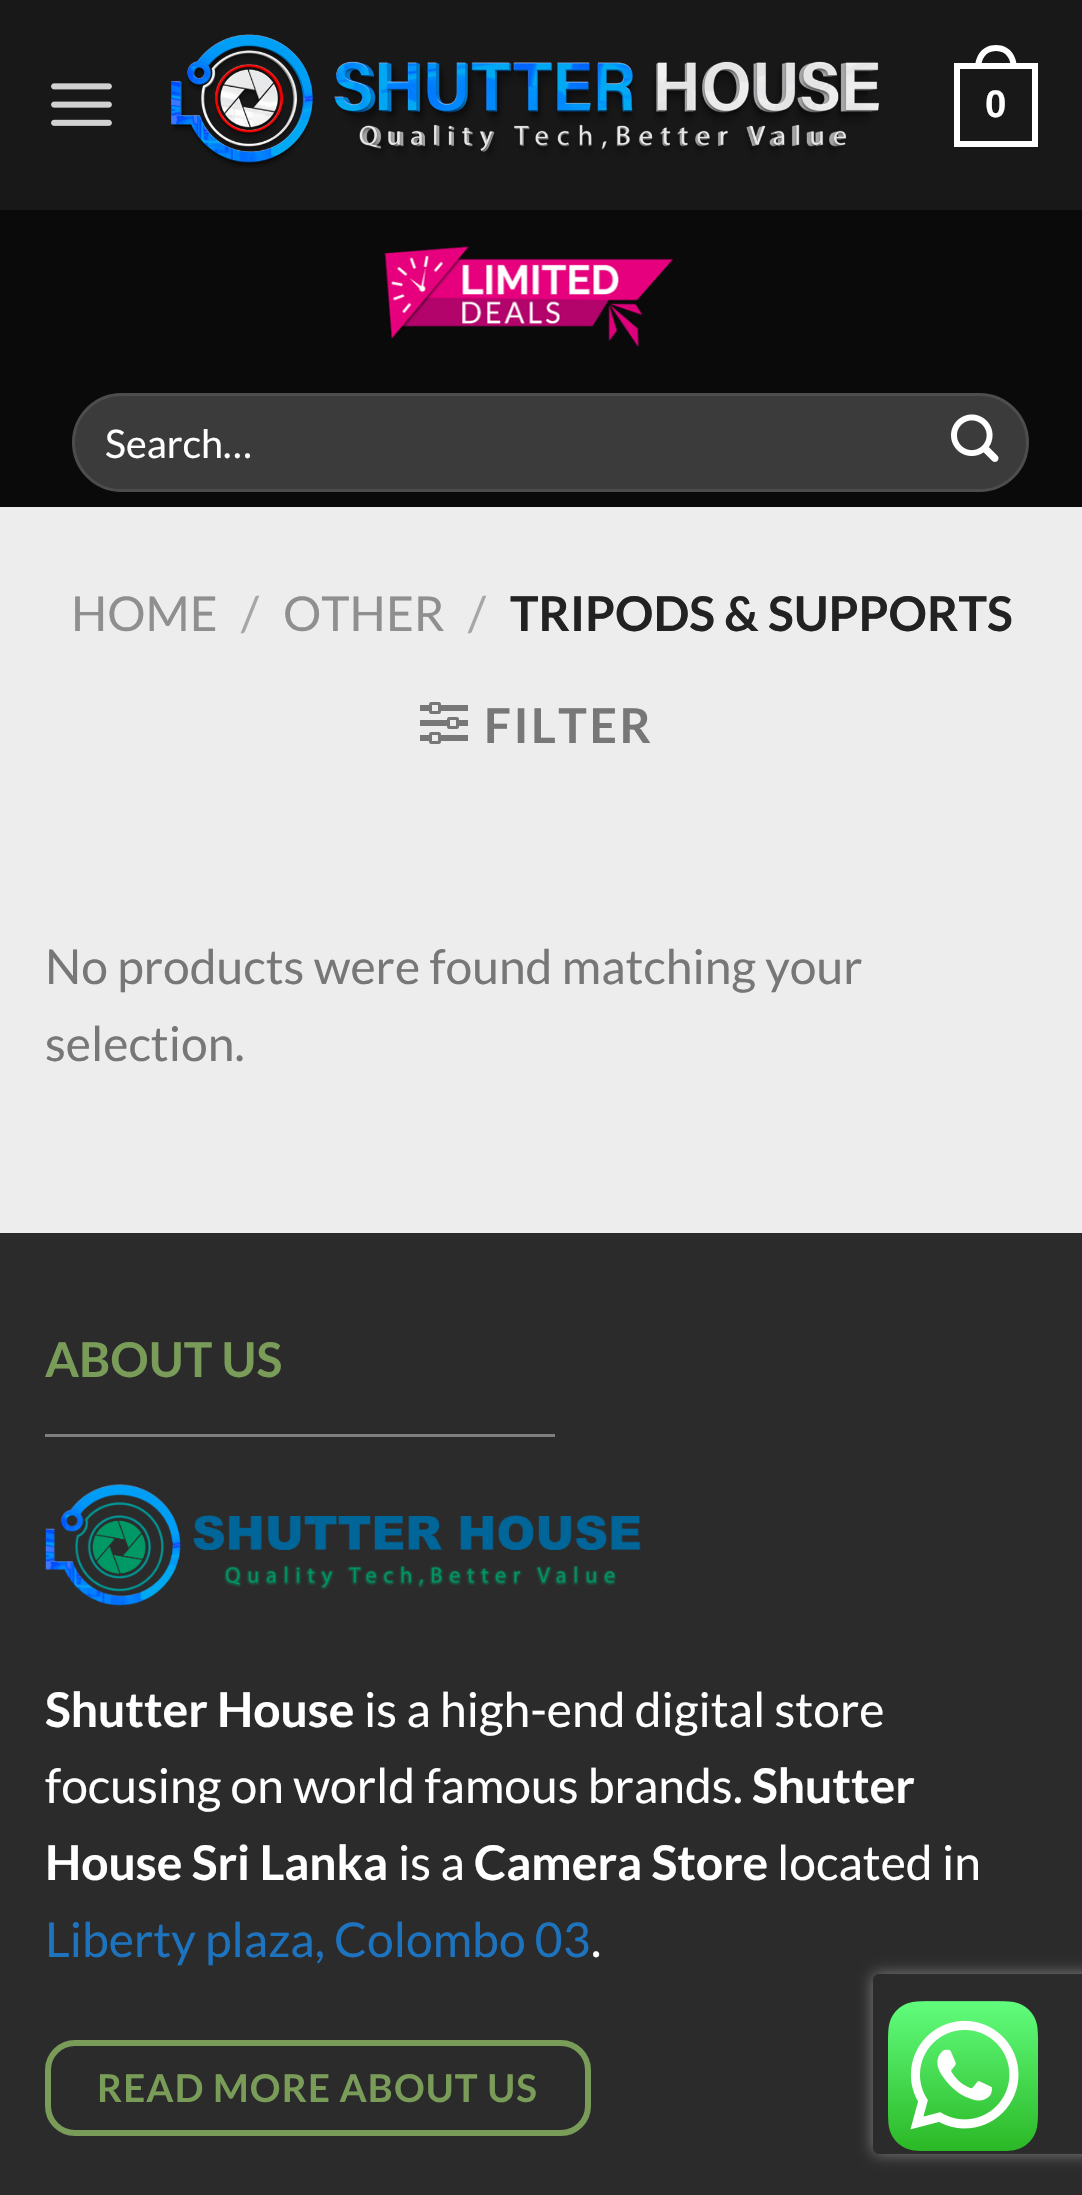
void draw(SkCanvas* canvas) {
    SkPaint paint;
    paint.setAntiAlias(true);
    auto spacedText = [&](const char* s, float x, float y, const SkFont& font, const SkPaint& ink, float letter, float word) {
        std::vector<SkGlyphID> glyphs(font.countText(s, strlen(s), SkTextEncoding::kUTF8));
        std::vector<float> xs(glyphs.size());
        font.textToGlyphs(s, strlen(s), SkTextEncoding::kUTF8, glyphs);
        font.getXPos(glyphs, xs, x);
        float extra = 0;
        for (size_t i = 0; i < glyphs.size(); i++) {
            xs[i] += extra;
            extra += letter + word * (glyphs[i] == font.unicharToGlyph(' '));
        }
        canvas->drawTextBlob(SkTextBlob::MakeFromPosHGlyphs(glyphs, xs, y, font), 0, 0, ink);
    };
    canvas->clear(0xFFEDEDED);
    paint.setColor(0xFF181818);
    canvas->drawRect(SkRect::MakeXYWH(0, 0, 1082, 210), paint);
    canvas->drawImageRect(SkImages::DeferredFromEncodedData(SkData::MakeFromFileName("img1.png")), SkRect::MakeXYWH(51, 83, 61, 43), SkSamplingOptions());
    canvas->drawImageRect(SkImages::DeferredFromEncodedData(SkData::MakeFromFileName("img2.png")), SkRect::MakeXYWH(171, 34, 709, 134), SkSamplingOptions());
    paint.setStyle(SkPaint::kStroke_Style);
    paint.setStrokeWidth(6);
    paint.setColor(0xFFFFFFFF);
    canvas->drawRect(SkRect::MakeXYWH(957, 66, 78, 78), paint);
    paint.setStyle(SkPaint::kFill_Style);
    canvas->drawPath(SkPathBuilder(SkPathFillType::kEvenOdd).moveTo(996, 45).cubicTo(1010, 45, 1017, 56, 1017, 69).lineTo(975, 69).cubicTo(975, 56, 982, 45, 996, 45).close().moveTo(996, 51).cubicTo(1007, 51, 1011, 60, 1011, 69).lineTo(981, 69).cubicTo(981, 60, 985, 51, 996, 51).close().detach(), paint);
    SkFont font1(fontMgr->matchFamilyStyle("Liberation Sans", SkFontStyle::Bold()), 38.4f);
    font1.setSubpixel(true);
    canvas->drawString("0", 985, 117, font1, paint);
    paint.setColor(0xFF0A0A0A);
    canvas->drawRect(SkRect::MakeXYWH(0, 210, 1082, 297), paint);
    canvas->drawImageRect(SkImages::DeferredFromEncodedData(SkData::MakeFromFileName("img3.png")), SkRect::MakeXYWH(384, 246, 290, 101), SkSamplingOptions());
    paint.setColor(0xFF3B3B3B);
    canvas->drawRoundRect(SkRect::MakeXYWH(72, 393, 957, 99), 49.5f, 49.5f, paint);
    paint.setStyle(SkPaint::kStroke_Style);
    paint.setStrokeWidth(3);
    paint.setColor(0x17FFFFFF);
    canvas->drawRoundRect(SkRect::MakeXYWH(73.5f, 394.5f, 954, 96), 48, 48, paint);
    SkFont font2(fontMgr->matchFamilyStyle("Lato", SkFontStyle::Normal()), 39.5f);
    font2.setSubpixel(true);
    paint.setStyle(SkPaint::kFill_Style);
    paint.setColor(0xFFFFFFFF);
    canvas->drawString("Search…", 105, 458, font2, paint);
    canvas->drawImageRect(SkImages::DeferredFromEncodedData(SkData::MakeFromFileName("img4.png")), SkRect::MakeXYWH(951, 414, 48, 48), SkSamplingOptions());
    SkFont font3(fontMgr->matchFamilyStyle("Lato", SkFontStyle::Normal()), 48);
    font3.setSubpixel(true);
    paint.setColor(0xFF8F8F8F);
    canvas->drawString("HOME", 71, 631, font3, paint);
    paint.setColor(0xFFA6A6A6);
    canvas->drawString("/", 241, 631, font3, paint);
    paint.setColor(0xFF8F8F8F);
    canvas->drawString("OTHER", 283, 631, font3, paint);
    paint.setColor(0xFFA6A6A6);
    canvas->drawString("/", 468, 631, font3, paint);
    SkFont font4(fontMgr->matchFamilyStyle("Lato", SkFontStyle::Bold()), 48);
    font4.setSubpixel(true);
    paint.setColor(0xFF222222);
    canvas->drawString("TRIPODS & SUPPORTS", 510, 631, font4, paint);
    canvas->drawImageRect(SkImages::DeferredFromEncodedData(SkData::MakeFromFileName("img5.png")), SkRect::MakeXYWH(420, 702, 48, 42), SkSamplingOptions());
    paint.setColor(0xFF777777);
    spacedText("FILTER", 484, 743, font4, paint, 2.5f, 0);
    canvas->drawString("No products were found matching your", 45, 984, font3, paint);
    canvas->drawString("selection.", 45, 1061, font3, paint);
    paint.setColor(0xFF2B2B2B);
    canvas->drawRect(SkRect::MakeXYWH(0, 1233, 1082, 962), paint);
    paint.setColor(0xFF7A9C59);
    canvas->drawString("ABOUT US", 45, 1377, font4, paint);
    paint.setColor(0xFF7F7F7F);
    canvas->drawRect(SkRect::MakeXYWH(45, 1434, 510, 3), paint);
    canvas->drawImageRect(SkImages::DeferredFromEncodedData(SkData::MakeFromFileName("img6.png")), SkRect::MakeXYWH(45, 1484, 596, 122), SkSamplingOptions());
    paint.setColor(0xFFFFFFFF);
    canvas->drawString("Shutter House", 45, 1727, font4, paint);
    canvas->drawString("is a high-end digital store", 364, 1727, font3, paint);
    canvas->drawString("focusing on world famous brands.", 45, 1803, font3, paint);
    canvas->drawString("Shutter", 752, 1803, font4, paint);
    canvas->drawString("House Sri Lanka", 45, 1880, font4, paint);
    canvas->drawString("is a", 398, 1880, font3, paint);
    canvas->drawString("Camera Store", 474, 1880, font4, paint);
    canvas->drawString("located in", 777, 1880, font3, paint);
    paint.setColor(0xFF1E73BE);
    canvas->drawString("Liberty plaza, Colombo 03", 45, 1957, font3, paint);
    paint.setColor(0xFFFFFFFF);
    canvas->drawString(".", 591, 1957, font3, paint);
    paint.setStyle(SkPaint::kStroke_Style);
    paint.setStrokeWidth(6);
    paint.setColor(0xFF7A9C59);
    canvas->drawRoundRect(SkRect::MakeXYWH(48, 2043, 540, 90), 27, 27, paint);
    SkFont font5(fontMgr->matchFamilyStyle("Lato", SkFontStyle::Bold()), 38.4f);
    font5.setSubpixel(true);
    paint.setStyle(SkPaint::kFill_Style);
    spacedText("READ MORE ABOUT US", 97, 2102, font5, paint, 1.1f, 0);
    canvas->save();
    canvas->clipPath(SkPathBuilder(SkPathFillType::kEvenOdd).moveTo(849, 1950).lineTo(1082, 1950).lineTo(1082, 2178).lineTo(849, 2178).close().moveTo(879, 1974).lineTo(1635, 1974).cubicTo(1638.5f, 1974, 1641, 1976.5f, 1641, 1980).lineTo(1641, 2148).cubicTo(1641, 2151.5f, 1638.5f, 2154, 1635, 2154).lineTo(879, 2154).cubicTo(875.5f, 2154, 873, 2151.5f, 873, 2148).lineTo(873, 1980).cubicTo(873, 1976.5f, 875.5f, 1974, 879, 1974).close().detach(), true);
    paint.setColor(0xFF808080);
    paint.setMaskFilter(SkMaskFilter::MakeBlur(kNormal_SkBlurStyle, 7.5f));
    canvas->drawRoundRect(SkRect::MakeXYWH(873, 1974, 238, 180), 6, 6, paint);
    paint.setMaskFilter(nullptr);
    canvas->restore();
    canvas->drawImageRect(SkImages::DeferredFromEncodedData(SkData::MakeFromFileName("img7.png")), SkRect::MakeXYWH(888, 2001, 150, 150), SkSamplingOptions());
}
